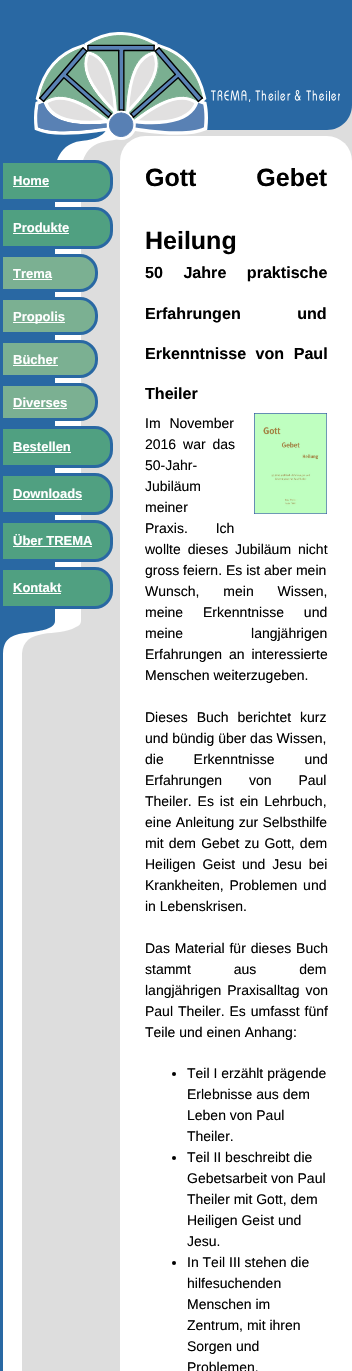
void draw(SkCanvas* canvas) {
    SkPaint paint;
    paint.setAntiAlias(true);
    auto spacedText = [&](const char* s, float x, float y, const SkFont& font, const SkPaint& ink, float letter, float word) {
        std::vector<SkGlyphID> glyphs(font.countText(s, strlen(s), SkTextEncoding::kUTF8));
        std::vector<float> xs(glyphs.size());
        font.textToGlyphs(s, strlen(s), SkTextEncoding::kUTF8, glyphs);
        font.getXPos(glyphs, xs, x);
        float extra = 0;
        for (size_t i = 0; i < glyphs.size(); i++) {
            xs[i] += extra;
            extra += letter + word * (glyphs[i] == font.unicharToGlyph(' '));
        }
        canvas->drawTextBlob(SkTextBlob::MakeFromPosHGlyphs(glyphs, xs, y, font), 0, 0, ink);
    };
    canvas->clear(0xFFDDDDDD);
    paint.setColor(0xFF2968A3);
    canvas->drawPath(SkPathBuilder().moveTo(119, 0).lineTo(352, 0).lineTo(352, 105).cubicTo(352, 119, 341, 130, 327, 130).lineTo(119, 130).close().detach(), paint);
    canvas->drawImageRect(SkImages::DeferredFromEncodedData(SkData::MakeFromFileName("img1.png")), SkRect::MakeXYWH(211, 90, 129, 12), SkSamplingOptions());
    canvas->drawImageRect(SkImages::DeferredFromEncodedData(SkData::MakeFromFileName("img2.png")), SkRect::MakeXYWH(0, 0, 120, 1371), SkSamplingOptions());
    paint.setColor(0xFFFFFFFF);
    canvas->drawRoundRect(SkRect::MakeXYWH(120, 136, 232, 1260), 25, 25, paint);
    canvas->drawImageRect(SkImages::DeferredFromEncodedData(SkData::MakeFromFileName("img3.png")), SkRect::MakeXYWH(34, 32, 174, 108), SkSamplingOptions());
    canvas->drawRect(SkRect::MakeXYWH(55, 202, 26, 413), paint);
    paint.setColor(0xFF2968A3);
    canvas->drawRect(SkRect::MakeXYWH(3, 202, 52, 413), paint);
    paint.setColor(0xFF50A081);
    canvas->drawPath(SkPathBuilder().moveTo(1.5f, 161.5f).lineTo(95, 161.5f).cubicTo(104, 161.5f, 111.5f, 169, 111.5f, 178).lineTo(111.5f, 184).cubicTo(111.5f, 193, 104, 200.5f, 95, 200.5f).lineTo(1.5f, 200.5f).close().detach(), paint);
    paint.setStyle(SkPaint::kStroke_Style);
    paint.setStrokeWidth(3);
    paint.setColor(0xFF2968A3);
    canvas->drawPath(SkPathBuilder().moveTo(1.5f, 161.5f).lineTo(95, 161.5f).cubicTo(104, 161.5f, 111.5f, 169, 111.5f, 178).lineTo(111.5f, 184).cubicTo(111.5f, 193, 104, 200.5f, 95, 200.5f).lineTo(1.5f, 200.5f).close().detach(), paint);
    SkFont font1(fontMgr->matchFamilyStyle("Liberation Sans", SkFontStyle::Bold()), 13);
    font1.setSubpixel(true);
    paint.setStyle(SkPaint::kFill_Style);
    paint.setColor(0xFFFFFFFF);
    canvas->drawString("Home", 13, 185, font1, paint);
    canvas->drawRect(SkRect::MakeXYWH(13, 186, 36, 1), paint);
    paint.setColor(0xFF50A081);
    canvas->drawPath(SkPathBuilder().moveTo(1.5f, 208.5f).lineTo(95, 208.5f).cubicTo(104, 208.5f, 111.5f, 216, 111.5f, 225).lineTo(111.5f, 231).cubicTo(111.5f, 240, 104, 247.5f, 95, 247.5f).lineTo(1.5f, 247.5f).close().detach(), paint);
    paint.setStyle(SkPaint::kStroke_Style);
    paint.setColor(0xFF2968A3);
    canvas->drawPath(SkPathBuilder().moveTo(1.5f, 208.5f).lineTo(95, 208.5f).cubicTo(104, 208.5f, 111.5f, 216, 111.5f, 225).lineTo(111.5f, 231).cubicTo(111.5f, 240, 104, 247.5f, 95, 247.5f).lineTo(1.5f, 247.5f).close().detach(), paint);
    paint.setStyle(SkPaint::kFill_Style);
    paint.setColor(0xFFFFFFFF);
    canvas->drawString("Produkte", 13, 232, font1, paint);
    canvas->drawRect(SkRect::MakeXYWH(13, 233, 56, 1), paint);
    paint.setColor(0xFF7BB092);
    canvas->drawPath(SkPathBuilder().moveTo(1.5f, 255.5f).lineTo(80, 255.5f).cubicTo(89, 255.5f, 96.5f, 263, 96.5f, 272).lineTo(96.5f, 274).cubicTo(96.5f, 283, 89, 290.5f, 80, 290.5f).lineTo(1.5f, 290.5f).close().detach(), paint);
    paint.setStyle(SkPaint::kStroke_Style);
    paint.setColor(0xFF2968A3);
    canvas->drawPath(SkPathBuilder().moveTo(1.5f, 255.5f).lineTo(80, 255.5f).cubicTo(89, 255.5f, 96.5f, 263, 96.5f, 272).lineTo(96.5f, 274).cubicTo(96.5f, 283, 89, 290.5f, 80, 290.5f).lineTo(1.5f, 290.5f).close().detach(), paint);
    paint.setStyle(SkPaint::kFill_Style);
    paint.setColor(0xFFFFFFFF);
    canvas->drawString("Trema", 13, 278, font1, paint);
    canvas->drawRect(SkRect::MakeXYWH(13, 279, 39, 1), paint);
    paint.setColor(0xFF7BB092);
    canvas->drawPath(SkPathBuilder().moveTo(1.5f, 298.5f).lineTo(80, 298.5f).cubicTo(89, 298.5f, 96.5f, 306, 96.5f, 315).lineTo(96.5f, 317).cubicTo(96.5f, 326, 89, 333.5f, 80, 333.5f).lineTo(1.5f, 333.5f).close().detach(), paint);
    paint.setStyle(SkPaint::kStroke_Style);
    paint.setColor(0xFF2968A3);
    canvas->drawPath(SkPathBuilder().moveTo(1.5f, 298.5f).lineTo(80, 298.5f).cubicTo(89, 298.5f, 96.5f, 306, 96.5f, 315).lineTo(96.5f, 317).cubicTo(96.5f, 326, 89, 333.5f, 80, 333.5f).lineTo(1.5f, 333.5f).close().detach(), paint);
    paint.setStyle(SkPaint::kFill_Style);
    paint.setColor(0xFFFFFFFF);
    canvas->drawRect(SkRect::MakeXYWH(13, 322, 52, 1), paint);
    canvas->drawString("Propolis", 13, 321, font1, paint);
    paint.setColor(0xFF7BB092);
    canvas->drawPath(SkPathBuilder().moveTo(1.5f, 341.5f).lineTo(80, 341.5f).cubicTo(89, 341.5f, 96.5f, 349, 96.5f, 358).lineTo(96.5f, 360).cubicTo(96.5f, 369, 89, 376.5f, 80, 376.5f).lineTo(1.5f, 376.5f).close().detach(), paint);
    paint.setStyle(SkPaint::kStroke_Style);
    paint.setColor(0xFF2968A3);
    canvas->drawPath(SkPathBuilder().moveTo(1.5f, 341.5f).lineTo(80, 341.5f).cubicTo(89, 341.5f, 96.5f, 349, 96.5f, 358).lineTo(96.5f, 360).cubicTo(96.5f, 369, 89, 376.5f, 80, 376.5f).lineTo(1.5f, 376.5f).close().detach(), paint);
    paint.setStyle(SkPaint::kFill_Style);
    paint.setColor(0xFFFFFFFF);
    canvas->drawString("Bücher", 13, 364, font1, paint);
    canvas->drawRect(SkRect::MakeXYWH(13, 365, 45, 1), paint);
    paint.setColor(0xFF7BB092);
    canvas->drawPath(SkPathBuilder().moveTo(1.5f, 384.5f).lineTo(80, 384.5f).cubicTo(89, 384.5f, 96.5f, 392, 96.5f, 401).lineTo(96.5f, 403).cubicTo(96.5f, 412, 89, 419.5f, 80, 419.5f).lineTo(1.5f, 419.5f).close().detach(), paint);
    paint.setStyle(SkPaint::kStroke_Style);
    paint.setColor(0xFF2968A3);
    canvas->drawPath(SkPathBuilder().moveTo(1.5f, 384.5f).lineTo(80, 384.5f).cubicTo(89, 384.5f, 96.5f, 392, 96.5f, 401).lineTo(96.5f, 403).cubicTo(96.5f, 412, 89, 419.5f, 80, 419.5f).lineTo(1.5f, 419.5f).close().detach(), paint);
    paint.setStyle(SkPaint::kFill_Style);
    paint.setColor(0xFFFFFFFF);
    canvas->drawString("Diverses", 13, 407, font1, paint);
    canvas->drawRect(SkRect::MakeXYWH(13, 408, 54, 1), paint);
    paint.setColor(0xFF50A081);
    canvas->drawPath(SkPathBuilder().moveTo(1.5f, 427.5f).lineTo(95, 427.5f).cubicTo(104, 427.5f, 111.5f, 435, 111.5f, 444).lineTo(111.5f, 450).cubicTo(111.5f, 459, 104, 466.5f, 95, 466.5f).lineTo(1.5f, 466.5f).close().detach(), paint);
    paint.setStyle(SkPaint::kStroke_Style);
    paint.setColor(0xFF2968A3);
    canvas->drawPath(SkPathBuilder().moveTo(1.5f, 427.5f).lineTo(95, 427.5f).cubicTo(104, 427.5f, 111.5f, 435, 111.5f, 444).lineTo(111.5f, 450).cubicTo(111.5f, 459, 104, 466.5f, 95, 466.5f).lineTo(1.5f, 466.5f).close().detach(), paint);
    paint.setStyle(SkPaint::kFill_Style);
    paint.setColor(0xFFFFFFFF);
    canvas->drawString("Bestellen", 13, 451, font1, paint);
    canvas->drawRect(SkRect::MakeXYWH(13, 452, 58, 1), paint);
    paint.setColor(0xFF50A081);
    canvas->drawPath(SkPathBuilder().moveTo(1.5f, 474.5f).lineTo(95, 474.5f).cubicTo(104, 474.5f, 111.5f, 482, 111.5f, 491).lineTo(111.5f, 497).cubicTo(111.5f, 506, 104, 513.5f, 95, 513.5f).lineTo(1.5f, 513.5f).close().detach(), paint);
    paint.setStyle(SkPaint::kStroke_Style);
    paint.setColor(0xFF2968A3);
    canvas->drawPath(SkPathBuilder().moveTo(1.5f, 474.5f).lineTo(95, 474.5f).cubicTo(104, 474.5f, 111.5f, 482, 111.5f, 491).lineTo(111.5f, 497).cubicTo(111.5f, 506, 104, 513.5f, 95, 513.5f).lineTo(1.5f, 513.5f).close().detach(), paint);
    paint.setStyle(SkPaint::kFill_Style);
    paint.setColor(0xFFFFFFFF);
    canvas->drawString("Downloads", 13, 498, font1, paint);
    canvas->drawRect(SkRect::MakeXYWH(13, 499, 69, 1), paint);
    paint.setColor(0xFF50A081);
    canvas->drawPath(SkPathBuilder().moveTo(1.5f, 521.5f).lineTo(95, 521.5f).cubicTo(104, 521.5f, 111.5f, 529, 111.5f, 538).lineTo(111.5f, 544).cubicTo(111.5f, 553, 104, 560.5f, 95, 560.5f).lineTo(1.5f, 560.5f).close().detach(), paint);
    paint.setStyle(SkPaint::kStroke_Style);
    paint.setColor(0xFF2968A3);
    canvas->drawPath(SkPathBuilder().moveTo(1.5f, 521.5f).lineTo(95, 521.5f).cubicTo(104, 521.5f, 111.5f, 529, 111.5f, 538).lineTo(111.5f, 544).cubicTo(111.5f, 553, 104, 560.5f, 95, 560.5f).lineTo(1.5f, 560.5f).close().detach(), paint);
    paint.setStyle(SkPaint::kFill_Style);
    paint.setColor(0xFFFFFFFF);
    canvas->drawString("Über TREMA", 13, 545, font1, paint);
    canvas->drawRect(SkRect::MakeXYWH(13, 546, 79, 1), paint);
    paint.setColor(0xFF50A081);
    canvas->drawPath(SkPathBuilder().moveTo(1.5f, 568.5f).lineTo(95, 568.5f).cubicTo(104, 568.5f, 111.5f, 576, 111.5f, 585).lineTo(111.5f, 591).cubicTo(111.5f, 600, 104, 607.5f, 95, 607.5f).lineTo(1.5f, 607.5f).close().detach(), paint);
    paint.setStyle(SkPaint::kStroke_Style);
    paint.setColor(0xFF2968A3);
    canvas->drawPath(SkPathBuilder().moveTo(1.5f, 568.5f).lineTo(95, 568.5f).cubicTo(104, 568.5f, 111.5f, 576, 111.5f, 585).lineTo(111.5f, 591).cubicTo(111.5f, 600, 104, 607.5f, 95, 607.5f).lineTo(1.5f, 607.5f).close().detach(), paint);
    paint.setStyle(SkPaint::kFill_Style);
    paint.setColor(0xFFFFFFFF);
    canvas->drawString("Kontakt", 13, 592, font1, paint);
    canvas->drawRect(SkRect::MakeXYWH(13, 593, 48, 1), paint);
    canvas->save();
    canvas->clipRect(SkRect::MakeXYWH(0, 615, 120, 38));
    canvas->drawPath(SkPathBuilder().moveTo(81, 615).lineTo(0, 615).lineTo(0, 655).lineTo(22, 655).cubicTo(22, 642, 30, 636, 43, 634).cubicTo(54, 632, 66, 633, 76, 627).cubicTo(79, 626, 81, 624, 81, 621).close().detach(), paint);
    paint.setColor(0xFF2968A3);
    canvas->drawPath(SkPathBuilder().moveTo(55, 615).lineTo(0, 615).lineTo(0, 655).lineTo(3, 655).cubicTo(3, 635, 16, 634, 33, 632).cubicTo(39, 631, 55, 629, 55, 621).close().detach(), paint);
    canvas->restore();
    SkFont font2(fontMgr->matchFamilyStyle("Liberation Sans", SkFontStyle::Bold()), 25);
    font2.setSubpixel(true);
    paint.setColor(0xFF000000);
    spacedText("Gott Gebet", 145, 186, font2, paint, 0, 53);
    canvas->drawString("Heilung", 145, 249, font2, paint);
    SkFont font3(fontMgr->matchFamilyStyle("Liberation Sans", SkFontStyle::Bold()), 16.1f);
    font3.setSubpixel(true);
    spacedText("50 Jahre praktische", 145, 278, font3, paint, 0, 16);
    spacedText("Erfahrungen und", 145, 319, font3, paint, 0, 52);
    spacedText("Erkenntnisse von Paul", 145, 359, font3, paint, 0, 5);
    canvas->drawString("Theiler", 145, 399, font3, paint);
    canvas->drawImageRect(SkImages::DeferredFromEncodedData(SkData::MakeFromFileName("img4.png")), SkRect::MakeXYWH(254, 413, 73, 101), SkSamplingOptions());
    SkFont font4(fontMgr->matchFamilyStyle("Liberation Sans", SkFontStyle::Normal()), 14);
    font4.setSubpixel(true);
    spacedText("Im November", 145, 428, font4, paint, 0, 5);
    spacedText("2016 war das", 145, 449, font4, paint, 0, 3);
    canvas->drawString("50-Jahr-", 145, 470, font4, paint);
    canvas->drawString("Jubiläum", 145, 491, font4, paint);
    canvas->drawString("meiner", 145, 512, font4, paint);
    spacedText("Praxis. Ich", 145, 533, font4, paint, 0, 24);
    spacedText("wollte dieses Jubiläum nicht", 145, 554, font4, paint, 0, 3);
    canvas->drawString("gross feiern. Es ist aber mein", 145, 575, font4, paint);
    spacedText("Wunsch, mein Wissen,", 145, 596, font4, paint, 0, 20);
    spacedText("meine Erkenntnisse und", 145, 617, font4, paint, 0, 16);
    spacedText("meine langjährigen", 145, 638, font4, paint, 0, 64);
    spacedText("Erfahrungen an interessierte", 145, 659, font4, paint, 0, 3);
    canvas->drawString("Menschen weiterzugeben.", 145, 680, font4, paint);
    spacedText("Dieses Buch berichtet kurz", 145, 722, font4, paint, 0, 5);
    canvas->drawString("und bündig über das Wissen,", 145, 743, font4, paint);
    spacedText("die Erkenntnisse und", 145, 764, font4, paint, 0, 26);
    spacedText("Erfahrungen von Paul", 145, 785, font4, paint, 0, 23);
    spacedText("Theiler. Es ist ein Lehrbuch,", 145, 806, font4, paint, 0, 2);
    spacedText("eine Anleitung zur Selbsthilfe", 145, 827, font4, paint, 0, 0.5f);
    spacedText("mit dem Gebet zu Gott, dem", 145, 848, font4, paint, 0, 1.25f);
    spacedText("Heiligen Geist und Jesu bei", 145, 869, font4, paint, 0, 3);
    spacedText("Krankheiten, Problemen und", 145, 890, font4, paint, 0, 2);
    canvas->drawString("in Lebenskrisen.", 145, 911, font4, paint);
    spacedText("Das Material für dieses Buch", 145, 953, font4, paint, 0, 1);
    spacedText("stammt aus dem", 145, 974, font4, paint, 0, 39);
    spacedText("langjährigen Praxisalltag von", 145, 995, font4, paint, 0, 2);
    spacedText("Paul Theiler. Es umfasst fünf", 145, 1016, font4, paint, 0, 1);
    canvas->drawString("Teile und einen Anhang:", 145, 1037, font4, paint);
    canvas->drawCircle(174, 1074, 2, paint);
    canvas->drawString("Teil I erzählt prägende", 187, 1078, font4, paint);
    canvas->drawString("Erlebnisse aus dem", 187, 1099, font4, paint);
    canvas->drawString("Leben von Paul", 187, 1120, font4, paint);
    canvas->drawString("Theiler.", 187, 1141, font4, paint);
    canvas->drawCircle(174, 1158, 2, paint);
    canvas->drawString("Teil II beschreibt die", 187, 1162, font4, paint);
    canvas->drawString("Gebetsarbeit von Paul", 187, 1183, font4, paint);
    canvas->drawString("Theiler mit Gott, dem", 187, 1204, font4, paint);
    canvas->drawString("Heiligen Geist und", 187, 1225, font4, paint);
    canvas->drawString("Jesu.", 187, 1246, font4, paint);
    canvas->drawCircle(174, 1263, 2, paint);
    canvas->drawString("In Teil III stehen die", 187, 1267, font4, paint);
    canvas->drawString("hilfesuchenden", 187, 1288, font4, paint);
    canvas->drawString("Menschen im", 187, 1309, font4, paint);
    canvas->drawString("Zentrum, mit ihren", 187, 1330, font4, paint);
    canvas->drawString("Sorgen und", 187, 1351, font4, paint);
    canvas->drawString("Problemen.", 187, 1372, font4, paint);
}
